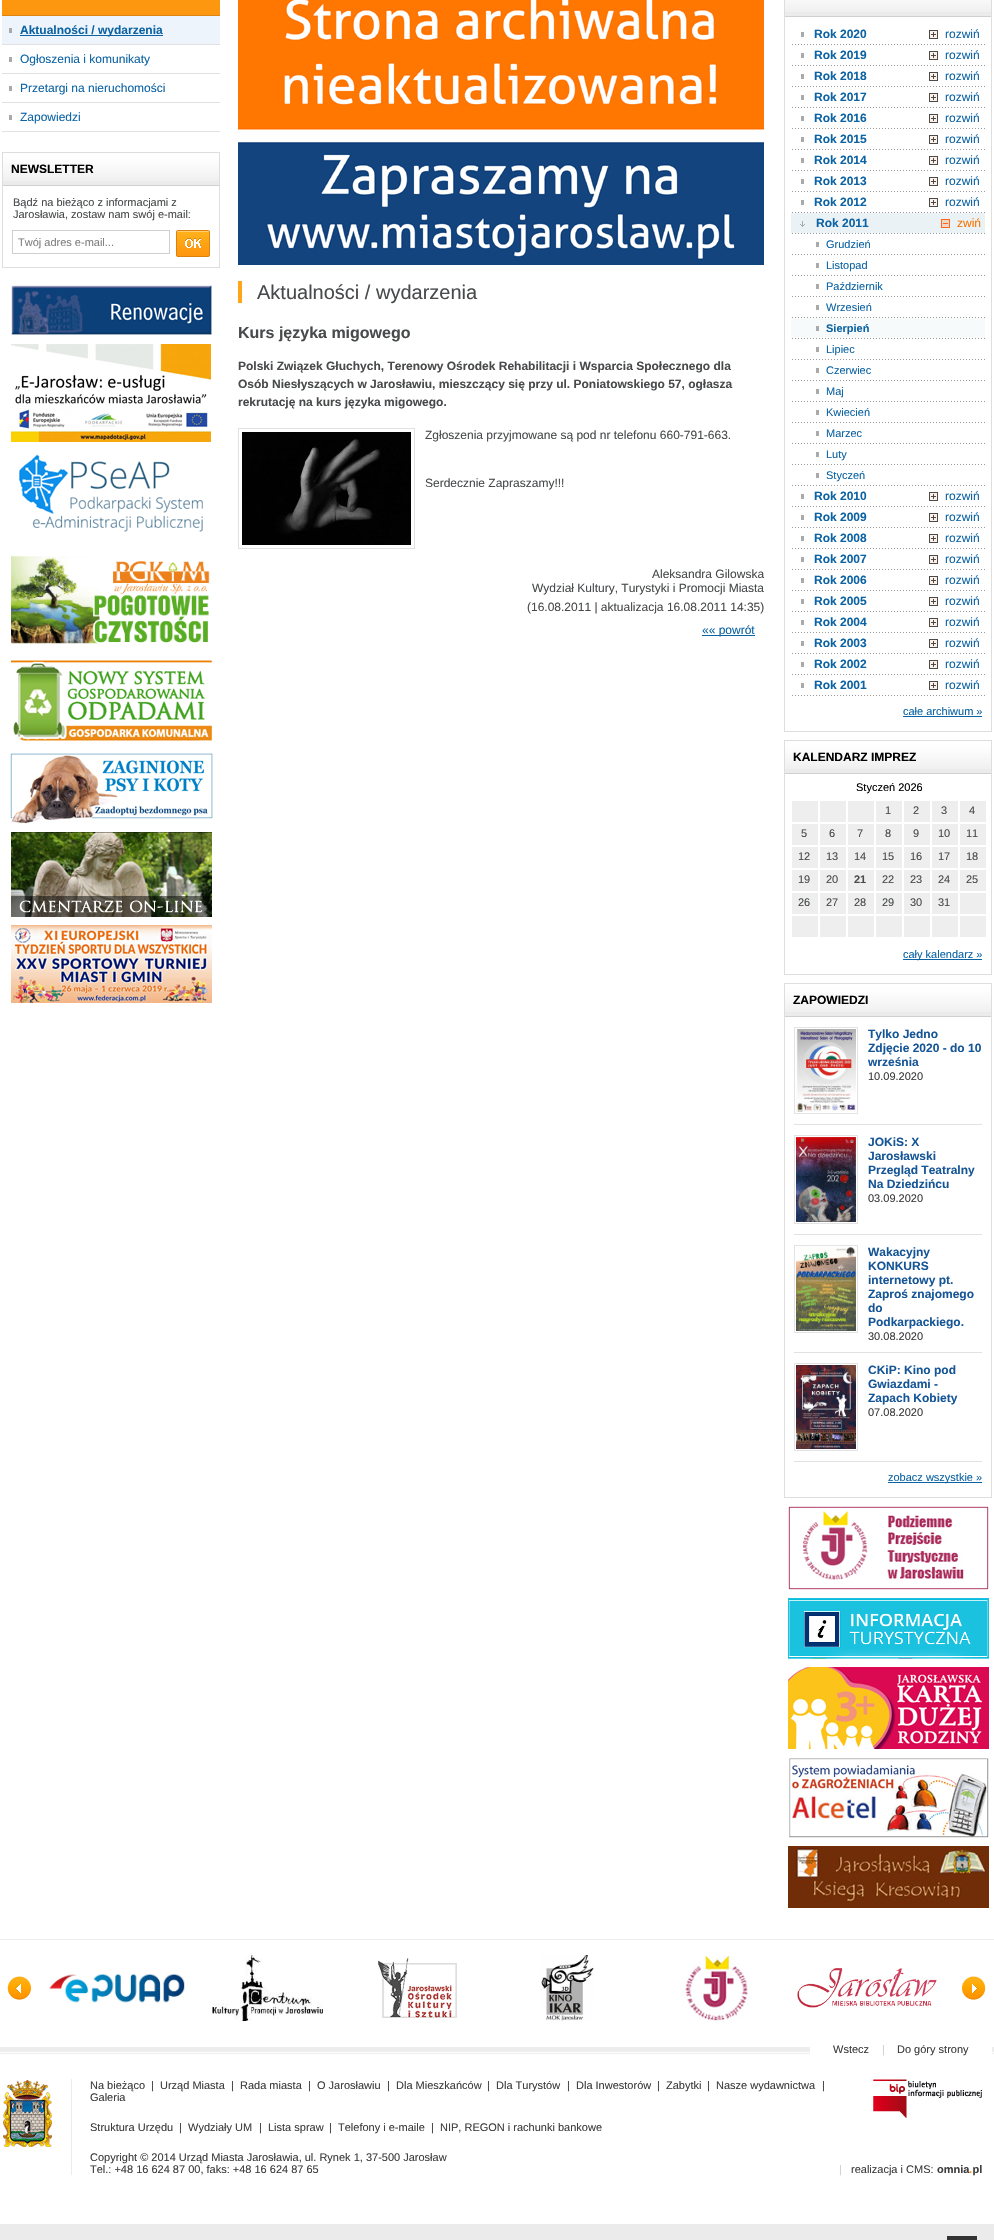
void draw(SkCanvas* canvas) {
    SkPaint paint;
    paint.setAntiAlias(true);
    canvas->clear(0xFFFFFFFF);
    paint.setColor(0xFFFE9710);
    canvas->drawRect(SkRect::MakeXYWH(2, 0, 218, 15), paint);
    paint.setColor(0xFFDD8512);
    canvas->drawRect(SkRect::MakeXYWH(2, 15, 218, 1), paint);
    paint.setColor(0xFFEDF4FC);
    canvas->drawRect(SkRect::MakeXYWH(2, 16, 218, 28), paint);
    paint.setColor(0xFFE1E1E1);
    canvas->drawRect(SkRect::MakeXYWH(2, 44, 218, 1), paint);
    paint.setColor(0xFFAAAAAA);
    canvas->drawRect(SkRect::MakeXYWH(9, 28, 3, 5), paint);
    paint.setColor(0xFF0C63A4);
    canvas->drawRect(SkRect::MakeXYWH(20, 35, 143, 1), paint);
    SkFont font1(fontMgr->matchFamilyStyle("Liberation Sans", SkFontStyle::Bold()), 12);
    font1.setSubpixel(true);
    canvas->drawString("Aktualności / wydarzenia", 20, 34, font1, paint);
    paint.setColor(0xFFE1E1E1);
    canvas->drawRect(SkRect::MakeXYWH(2, 73, 218, 1), paint);
    paint.setColor(0xFFAAAAAA);
    canvas->drawRect(SkRect::MakeXYWH(9, 57, 3, 5), paint);
    SkFont font2(fontMgr->matchFamilyStyle("Liberation Sans", SkFontStyle::Normal()), 12);
    font2.setSubpixel(true);
    paint.setColor(0xFF0C63A4);
    canvas->drawString("Ogłoszenia i komunikaty", 20, 63, font2, paint);
    paint.setColor(0xFFE1E1E1);
    canvas->drawRect(SkRect::MakeXYWH(2, 102, 218, 1), paint);
    paint.setColor(0xFFAAAAAA);
    canvas->drawRect(SkRect::MakeXYWH(9, 86, 3, 5), paint);
    paint.setColor(0xFF0C63A4);
    canvas->drawString("Przetargi na nieruchomości", 20, 92, font2, paint);
    paint.setColor(0xFFE1E1E1);
    canvas->drawRect(SkRect::MakeXYWH(2, 131, 218, 1), paint);
    paint.setColor(0xFFAAAAAA);
    canvas->drawRect(SkRect::MakeXYWH(9, 115, 3, 5), paint);
    paint.setColor(0xFF0C63A4);
    canvas->drawString("Zapowiedzi", 20, 121, font2, paint);
    paint.setStyle(SkPaint::kStroke_Style);
    paint.setStrokeWidth(1);
    paint.setColor(0xFFDEDEDE);
    canvas->drawRect(SkRect::MakeXYWH(2.5f, 152.5f, 217, 115), paint);
    paint.setStyle(SkPaint::kFill_Style);
    paint.setColor(0xFFEBEBEB);
    canvas->drawRect(SkRect::MakeXYWH(3, 181, 216, 4), paint);
    canvas->drawImageRect(SkImages::DeferredFromEncodedData(SkData::MakeFromFileName("img1.png")), SkRect::MakeXYWH(3, 153, 216, 28), SkSamplingOptions());
    paint.setColor(0xFFD0D0D0);
    canvas->drawRect(SkRect::MakeXYWH(3, 185, 216, 1), paint);
    paint.setColor(0xFF000000);
    canvas->drawString("NEWSLETTER", 11, 173, font1, paint);
    SkFont font3(fontMgr->matchFamilyStyle("Liberation Sans", SkFontStyle::Normal()), 11);
    font3.setSubpixel(true);
    paint.setColor(0xFF484A4B);
    canvas->drawString("Bądź na bieżąco z informacjami z", 13, 206, font3, paint);
    canvas->drawString("Jarosławia, zostaw nam swój e-mail:", 13, 218, font3, paint);
    paint.setStyle(SkPaint::kStroke_Style);
    paint.setColor(0xFFCFCFCF);
    canvas->drawRect(SkRect::MakeXYWH(12.5f, 230.5f, 157, 23), paint);
    paint.setStyle(SkPaint::kFill_Style);
    paint.setColor(0xFF7F7F7F);
    canvas->drawString("Twój adres e-mail...", 18, 246, font3, paint);
    canvas->drawImageRect(SkImages::DeferredFromEncodedData(SkData::MakeFromFileName("img2.png")), SkRect::MakeXYWH(176, 230, 34, 27), SkSamplingOptions());
    canvas->drawImageRect(SkImages::DeferredFromEncodedData(SkData::MakeFromFileName("img3.png")), SkRect::MakeXYWH(11, 285, 201, 50), SkSamplingOptions());
    canvas->drawImageRect(SkImages::DeferredFromEncodedData(SkData::MakeFromFileName("img4.png")), SkRect::MakeXYWH(11, 344, 200, 98), SkSamplingOptions());
    canvas->drawImageRect(SkImages::DeferredFromEncodedData(SkData::MakeFromFileName("img5.png")), SkRect::MakeXYWH(18, 454, 185, 78), SkSamplingOptions());
    canvas->drawImageRect(SkImages::DeferredFromEncodedData(SkData::MakeFromFileName("img6.png")), SkRect::MakeXYWH(11, 555, 199, 89), SkSamplingOptions());
    canvas->drawImageRect(SkImages::DeferredFromEncodedData(SkData::MakeFromFileName("img7.png")), SkRect::MakeXYWH(11, 660, 201, 82), SkSamplingOptions());
    canvas->drawImageRect(SkImages::DeferredFromEncodedData(SkData::MakeFromFileName("img8.png")), SkRect::MakeXYWH(10, 753, 203, 71), SkSamplingOptions());
    canvas->drawImageRect(SkImages::DeferredFromEncodedData(SkData::MakeFromFileName("img9.png")), SkRect::MakeXYWH(11, 832, 201, 85), SkSamplingOptions());
    canvas->drawImageRect(SkImages::DeferredFromEncodedData(SkData::MakeFromFileName("img10.png")), SkRect::MakeXYWH(11, 925, 201, 78), SkSamplingOptions());
    canvas->drawImageRect(SkImages::DeferredFromEncodedData(SkData::MakeFromFileName("img11.png")), SkRect::MakeXYWH(238, 0, 526, 265), SkSamplingOptions());
    paint.setColor(0xFFFFA516);
    canvas->drawRect(SkRect::MakeXYWH(238, 281, 4, 22), paint);
    SkFont font4(fontMgr->matchFamilyStyle("Liberation Sans", SkFontStyle::Normal()), 20);
    font4.setSubpixel(true);
    paint.setColor(0xFF484A4B);
    canvas->drawString("Aktualności / wydarzenia", 257, 299, font4, paint);
    SkFont font5(fontMgr->matchFamilyStyle("Liberation Sans", SkFontStyle::Bold()), 16);
    font5.setSubpixel(true);
    canvas->drawString("Kurs języka migowego", 238, 338, font5, paint);
    canvas->drawString("Polski Związek Głuchych, Terenowy Ośrodek Rehabilitacji i Wsparcia Społecznego dla", 238, 370, font1, paint);
    canvas->drawString("Osób Niesłyszących w Jarosławiu, mieszczący się przy ul. Poniatowskiego 57, ogłasza", 238, 388, font1, paint);
    canvas->drawString("rekrutację na kurs języka migowego.", 238, 406, font1, paint);
    paint.setStyle(SkPaint::kStroke_Style);
    paint.setColor(0xFFE1E1E1);
    canvas->drawRect(SkRect::MakeXYWH(238.5f, 428.5f, 176, 120), paint);
    canvas->drawImageRect(SkImages::DeferredFromEncodedData(SkData::MakeFromFileName("img12.png")), SkRect::MakeXYWH(242, 432, 169, 113), SkSamplingOptions());
    paint.setStyle(SkPaint::kFill_Style);
    paint.setColor(0xFF484A4B);
    canvas->drawString("Zgłoszenia przyjmowane są pod nr telefonu 660-791-663.", 425, 439, font2, paint);
    canvas->drawString("Serdecznie Zapraszamy!!!", 425, 487, font2, paint);
    canvas->drawString("Aleksandra Gilowska", 652, 578, font2, paint);
    canvas->drawString("Wydział Kultury, Turystyki i Promocji Miasta", 532, 592, font2, paint);
    canvas->drawString("(16.08.2011 | aktualizacja 16.08.2011 14:35)", 527, 611, font2, paint);
    paint.setColor(0xFF0C63A4);
    canvas->drawRect(SkRect::MakeXYWH(702, 635, 53, 1), paint);
    canvas->drawString("«« powrót", 702, 634, font2, paint);
    paint.setStyle(SkPaint::kStroke_Style);
    paint.setColor(0xFFDEDEDE);
    canvas->drawRect(SkRect::MakeXYWH(784.5f, -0.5f, 207, 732), paint);
    paint.setStyle(SkPaint::kFill_Style);
    paint.setColor(0xFFEBEBEB);
    canvas->drawRect(SkRect::MakeXYWH(785, 12, 206, 4), paint);
    canvas->drawImageRect(SkImages::DeferredFromEncodedData(SkData::MakeFromFileName("img13.png")), SkRect::MakeXYWH(785, 0, 206, 12), SkSamplingOptions());
    paint.setColor(0xFFD0D0D0);
    canvas->drawRect(SkRect::MakeXYWH(785, 16, 206, 1), paint);
    canvas->drawImageRect(SkImages::DeferredFromEncodedData(SkData::MakeFromFileName("img14.png")), SkRect::MakeXYWH(792, 44, 193, 1), SkSamplingOptions());
    paint.setColor(0xFFAAAAAA);
    canvas->drawRect(SkRect::MakeXYWH(801, 32, 3, 5), paint);
    paint.setColor(0xFF0C63A4);
    canvas->drawString("Rok 2020", 814, 38, font1, paint);
    canvas->drawImageRect(SkImages::DeferredFromEncodedData(SkData::MakeFromFileName("img15.png")), SkRect::MakeXYWH(929, 30, 9, 9), SkSamplingOptions());
    canvas->drawString("rozwiń", 945, 38, font2, paint);
    canvas->drawImageRect(SkImages::DeferredFromEncodedData(SkData::MakeFromFileName("img14.png")), SkRect::MakeXYWH(792, 65, 193, 1), SkSamplingOptions());
    paint.setColor(0xFFAAAAAA);
    canvas->drawRect(SkRect::MakeXYWH(801, 53, 3, 5), paint);
    paint.setColor(0xFF0C63A4);
    canvas->drawString("Rok 2019", 814, 59, font1, paint);
    canvas->drawImageRect(SkImages::DeferredFromEncodedData(SkData::MakeFromFileName("img15.png")), SkRect::MakeXYWH(929, 51, 9, 9), SkSamplingOptions());
    canvas->drawString("rozwiń", 945, 59, font2, paint);
    canvas->drawImageRect(SkImages::DeferredFromEncodedData(SkData::MakeFromFileName("img14.png")), SkRect::MakeXYWH(792, 86, 193, 1), SkSamplingOptions());
    paint.setColor(0xFFAAAAAA);
    canvas->drawRect(SkRect::MakeXYWH(801, 74, 3, 5), paint);
    paint.setColor(0xFF0C63A4);
    canvas->drawString("Rok 2018", 814, 80, font1, paint);
    canvas->drawImageRect(SkImages::DeferredFromEncodedData(SkData::MakeFromFileName("img15.png")), SkRect::MakeXYWH(929, 72, 9, 9), SkSamplingOptions());
    canvas->drawString("rozwiń", 945, 80, font2, paint);
    canvas->drawImageRect(SkImages::DeferredFromEncodedData(SkData::MakeFromFileName("img14.png")), SkRect::MakeXYWH(792, 107, 193, 1), SkSamplingOptions());
    paint.setColor(0xFFAAAAAA);
    canvas->drawRect(SkRect::MakeXYWH(801, 95, 3, 5), paint);
    paint.setColor(0xFF0C63A4);
    canvas->drawString("Rok 2017", 814, 101, font1, paint);
    canvas->drawImageRect(SkImages::DeferredFromEncodedData(SkData::MakeFromFileName("img15.png")), SkRect::MakeXYWH(929, 93, 9, 9), SkSamplingOptions());
    canvas->drawString("rozwiń", 945, 101, font2, paint);
    canvas->drawImageRect(SkImages::DeferredFromEncodedData(SkData::MakeFromFileName("img14.png")), SkRect::MakeXYWH(792, 128, 193, 1), SkSamplingOptions());
    paint.setColor(0xFFAAAAAA);
    canvas->drawRect(SkRect::MakeXYWH(801, 116, 3, 5), paint);
    paint.setColor(0xFF0C63A4);
    canvas->drawString("Rok 2016", 814, 122, font1, paint);
    canvas->drawImageRect(SkImages::DeferredFromEncodedData(SkData::MakeFromFileName("img15.png")), SkRect::MakeXYWH(929, 114, 9, 9), SkSamplingOptions());
    canvas->drawString("rozwiń", 945, 122, font2, paint);
    canvas->drawImageRect(SkImages::DeferredFromEncodedData(SkData::MakeFromFileName("img14.png")), SkRect::MakeXYWH(792, 149, 193, 1), SkSamplingOptions());
    paint.setColor(0xFFAAAAAA);
    canvas->drawRect(SkRect::MakeXYWH(801, 137, 3, 5), paint);
    paint.setColor(0xFF0C63A4);
    canvas->drawString("Rok 2015", 814, 143, font1, paint);
    canvas->drawImageRect(SkImages::DeferredFromEncodedData(SkData::MakeFromFileName("img15.png")), SkRect::MakeXYWH(929, 135, 9, 9), SkSamplingOptions());
    canvas->drawString("rozwiń", 945, 143, font2, paint);
    canvas->drawImageRect(SkImages::DeferredFromEncodedData(SkData::MakeFromFileName("img14.png")), SkRect::MakeXYWH(792, 170, 193, 1), SkSamplingOptions());
    paint.setColor(0xFFAAAAAA);
    canvas->drawRect(SkRect::MakeXYWH(801, 158, 3, 5), paint);
    paint.setColor(0xFF0C63A4);
    canvas->drawString("Rok 2014", 814, 164, font1, paint);
    canvas->drawImageRect(SkImages::DeferredFromEncodedData(SkData::MakeFromFileName("img15.png")), SkRect::MakeXYWH(929, 156, 9, 9), SkSamplingOptions());
    canvas->drawString("rozwiń", 945, 164, font2, paint);
    canvas->drawImageRect(SkImages::DeferredFromEncodedData(SkData::MakeFromFileName("img14.png")), SkRect::MakeXYWH(792, 191, 193, 1), SkSamplingOptions());
    paint.setColor(0xFFAAAAAA);
    canvas->drawRect(SkRect::MakeXYWH(801, 179, 3, 5), paint);
    paint.setColor(0xFF0C63A4);
    canvas->drawString("Rok 2013", 814, 185, font1, paint);
    canvas->drawImageRect(SkImages::DeferredFromEncodedData(SkData::MakeFromFileName("img15.png")), SkRect::MakeXYWH(929, 177, 9, 9), SkSamplingOptions());
    canvas->drawString("rozwiń", 945, 185, font2, paint);
    canvas->drawImageRect(SkImages::DeferredFromEncodedData(SkData::MakeFromFileName("img14.png")), SkRect::MakeXYWH(792, 212, 193, 1), SkSamplingOptions());
    paint.setColor(0xFFAAAAAA);
    canvas->drawRect(SkRect::MakeXYWH(801, 200, 3, 5), paint);
    paint.setColor(0xFF0C63A4);
    canvas->drawString("Rok 2012", 814, 206, font1, paint);
    canvas->drawImageRect(SkImages::DeferredFromEncodedData(SkData::MakeFromFileName("img15.png")), SkRect::MakeXYWH(929, 198, 9, 9), SkSamplingOptions());
    canvas->drawString("rozwiń", 945, 206, font2, paint);
    paint.setColor(0xFFEBF2F5);
    canvas->drawRect(SkRect::MakeXYWH(791, 213, 194, 20), paint);
    canvas->drawImageRect(SkImages::DeferredFromEncodedData(SkData::MakeFromFileName("img16.png")), SkRect::MakeXYWH(800, 221, 5, 6), SkSamplingOptions());
    paint.setColor(0xFF0C63A4);
    canvas->drawString("Rok 2011", 816, 227, font1, paint);
    canvas->drawImageRect(SkImages::DeferredFromEncodedData(SkData::MakeFromFileName("img17.png")), SkRect::MakeXYWH(941, 219, 9, 9), SkSamplingOptions());
    paint.setColor(0xFFF77400);
    canvas->drawString("zwiń", 957, 227, font2, paint);
    canvas->drawImageRect(SkImages::DeferredFromEncodedData(SkData::MakeFromFileName("img14.png")), SkRect::MakeXYWH(792, 233, 193, 1), SkSamplingOptions());
    canvas->drawImageRect(SkImages::DeferredFromEncodedData(SkData::MakeFromFileName("img14.png")), SkRect::MakeXYWH(792, 254, 193, 1), SkSamplingOptions());
    paint.setColor(0xFFAAAAAA);
    canvas->drawRect(SkRect::MakeXYWH(816, 242, 3, 5), paint);
    paint.setColor(0xFF0C63A4);
    canvas->drawString("Grudzień", 826, 248, font3, paint);
    canvas->drawImageRect(SkImages::DeferredFromEncodedData(SkData::MakeFromFileName("img14.png")), SkRect::MakeXYWH(792, 275, 193, 1), SkSamplingOptions());
    paint.setColor(0xFFAAAAAA);
    canvas->drawRect(SkRect::MakeXYWH(816, 263, 3, 5), paint);
    paint.setColor(0xFF0C63A4);
    canvas->drawString("Listopad", 826, 269, font3, paint);
    canvas->drawImageRect(SkImages::DeferredFromEncodedData(SkData::MakeFromFileName("img14.png")), SkRect::MakeXYWH(792, 296, 193, 1), SkSamplingOptions());
    paint.setColor(0xFFAAAAAA);
    canvas->drawRect(SkRect::MakeXYWH(816, 284, 3, 5), paint);
    paint.setColor(0xFF0C63A4);
    canvas->drawString("Październik", 826, 290, font3, paint);
    canvas->drawImageRect(SkImages::DeferredFromEncodedData(SkData::MakeFromFileName("img14.png")), SkRect::MakeXYWH(792, 317, 193, 1), SkSamplingOptions());
    paint.setColor(0xFFAAAAAA);
    canvas->drawRect(SkRect::MakeXYWH(816, 305, 3, 5), paint);
    paint.setColor(0xFF0C63A4);
    canvas->drawString("Wrzesień", 826, 311, font3, paint);
    canvas->drawImageRect(SkImages::DeferredFromEncodedData(SkData::MakeFromFileName("img14.png")), SkRect::MakeXYWH(792, 338, 193, 1), SkSamplingOptions());
    paint.setColor(0xFFF7FAFB);
    canvas->drawRect(SkRect::MakeXYWH(791, 318, 194, 20), paint);
    paint.setColor(0xFFAAAAAA);
    canvas->drawRect(SkRect::MakeXYWH(816, 326, 3, 5), paint);
    SkFont font6(fontMgr->matchFamilyStyle("Liberation Sans", SkFontStyle::Bold()), 11);
    font6.setSubpixel(true);
    paint.setColor(0xFF0C63A4);
    canvas->drawString("Sierpień", 826, 332, font6, paint);
    canvas->drawImageRect(SkImages::DeferredFromEncodedData(SkData::MakeFromFileName("img14.png")), SkRect::MakeXYWH(792, 359, 193, 1), SkSamplingOptions());
    paint.setColor(0xFFAAAAAA);
    canvas->drawRect(SkRect::MakeXYWH(816, 347, 3, 5), paint);
    paint.setColor(0xFF0C63A4);
    canvas->drawString("Lipiec", 826, 353, font3, paint);
    canvas->drawImageRect(SkImages::DeferredFromEncodedData(SkData::MakeFromFileName("img14.png")), SkRect::MakeXYWH(792, 380, 193, 1), SkSamplingOptions());
    paint.setColor(0xFFAAAAAA);
    canvas->drawRect(SkRect::MakeXYWH(816, 368, 3, 5), paint);
    paint.setColor(0xFF0C63A4);
    canvas->drawString("Czerwiec", 826, 374, font3, paint);
    canvas->drawImageRect(SkImages::DeferredFromEncodedData(SkData::MakeFromFileName("img14.png")), SkRect::MakeXYWH(792, 401, 193, 1), SkSamplingOptions());
    paint.setColor(0xFFAAAAAA);
    canvas->drawRect(SkRect::MakeXYWH(816, 389, 3, 5), paint);
    paint.setColor(0xFF0C63A4);
    canvas->drawString("Maj", 826, 395, font3, paint);
    canvas->drawImageRect(SkImages::DeferredFromEncodedData(SkData::MakeFromFileName("img14.png")), SkRect::MakeXYWH(792, 422, 193, 1), SkSamplingOptions());
    paint.setColor(0xFFAAAAAA);
    canvas->drawRect(SkRect::MakeXYWH(816, 410, 3, 5), paint);
    paint.setColor(0xFF0C63A4);
    canvas->drawString("Kwiecień", 826, 416, font3, paint);
    canvas->drawImageRect(SkImages::DeferredFromEncodedData(SkData::MakeFromFileName("img14.png")), SkRect::MakeXYWH(792, 443, 193, 1), SkSamplingOptions());
    paint.setColor(0xFFAAAAAA);
    canvas->drawRect(SkRect::MakeXYWH(816, 431, 3, 5), paint);
    paint.setColor(0xFF0C63A4);
    canvas->drawString("Marzec", 826, 437, font3, paint);
    canvas->drawImageRect(SkImages::DeferredFromEncodedData(SkData::MakeFromFileName("img14.png")), SkRect::MakeXYWH(792, 464, 193, 1), SkSamplingOptions());
    paint.setColor(0xFFAAAAAA);
    canvas->drawRect(SkRect::MakeXYWH(816, 452, 3, 5), paint);
    paint.setColor(0xFF0C63A4);
    canvas->drawString("Luty", 826, 458, font3, paint);
    canvas->drawImageRect(SkImages::DeferredFromEncodedData(SkData::MakeFromFileName("img14.png")), SkRect::MakeXYWH(792, 485, 193, 1), SkSamplingOptions());
    paint.setColor(0xFFAAAAAA);
    canvas->drawRect(SkRect::MakeXYWH(816, 473, 3, 5), paint);
    paint.setColor(0xFF0C63A4);
    canvas->drawString("Styczeń", 826, 479, font3, paint);
    canvas->drawImageRect(SkImages::DeferredFromEncodedData(SkData::MakeFromFileName("img14.png")), SkRect::MakeXYWH(792, 506, 193, 1), SkSamplingOptions());
    paint.setColor(0xFFAAAAAA);
    canvas->drawRect(SkRect::MakeXYWH(801, 494, 3, 5), paint);
    paint.setColor(0xFF0C63A4);
    canvas->drawString("Rok 2010", 814, 500, font1, paint);
    canvas->drawImageRect(SkImages::DeferredFromEncodedData(SkData::MakeFromFileName("img15.png")), SkRect::MakeXYWH(929, 492, 9, 9), SkSamplingOptions());
    canvas->drawString("rozwiń", 945, 500, font2, paint);
    canvas->drawImageRect(SkImages::DeferredFromEncodedData(SkData::MakeFromFileName("img14.png")), SkRect::MakeXYWH(792, 527, 193, 1), SkSamplingOptions());
    paint.setColor(0xFFAAAAAA);
    canvas->drawRect(SkRect::MakeXYWH(801, 515, 3, 5), paint);
    paint.setColor(0xFF0C63A4);
    canvas->drawString("Rok 2009", 814, 521, font1, paint);
    canvas->drawImageRect(SkImages::DeferredFromEncodedData(SkData::MakeFromFileName("img15.png")), SkRect::MakeXYWH(929, 513, 9, 9), SkSamplingOptions());
    canvas->drawString("rozwiń", 945, 521, font2, paint);
    canvas->drawImageRect(SkImages::DeferredFromEncodedData(SkData::MakeFromFileName("img14.png")), SkRect::MakeXYWH(792, 548, 193, 1), SkSamplingOptions());
    paint.setColor(0xFFAAAAAA);
    canvas->drawRect(SkRect::MakeXYWH(801, 536, 3, 5), paint);
    paint.setColor(0xFF0C63A4);
    canvas->drawString("Rok 2008", 814, 542, font1, paint);
    canvas->drawImageRect(SkImages::DeferredFromEncodedData(SkData::MakeFromFileName("img15.png")), SkRect::MakeXYWH(929, 534, 9, 9), SkSamplingOptions());
    canvas->drawString("rozwiń", 945, 542, font2, paint);
    canvas->drawImageRect(SkImages::DeferredFromEncodedData(SkData::MakeFromFileName("img14.png")), SkRect::MakeXYWH(792, 569, 193, 1), SkSamplingOptions());
    paint.setColor(0xFFAAAAAA);
    canvas->drawRect(SkRect::MakeXYWH(801, 557, 3, 5), paint);
    paint.setColor(0xFF0C63A4);
    canvas->drawString("Rok 2007", 814, 563, font1, paint);
    canvas->drawImageRect(SkImages::DeferredFromEncodedData(SkData::MakeFromFileName("img15.png")), SkRect::MakeXYWH(929, 555, 9, 9), SkSamplingOptions());
    canvas->drawString("rozwiń", 945, 563, font2, paint);
    canvas->drawImageRect(SkImages::DeferredFromEncodedData(SkData::MakeFromFileName("img14.png")), SkRect::MakeXYWH(792, 590, 193, 1), SkSamplingOptions());
    paint.setColor(0xFFAAAAAA);
    canvas->drawRect(SkRect::MakeXYWH(801, 578, 3, 5), paint);
    paint.setColor(0xFF0C63A4);
    canvas->drawString("Rok 2006", 814, 584, font1, paint);
    canvas->drawImageRect(SkImages::DeferredFromEncodedData(SkData::MakeFromFileName("img15.png")), SkRect::MakeXYWH(929, 576, 9, 9), SkSamplingOptions());
    canvas->drawString("rozwiń", 945, 584, font2, paint);
    canvas->drawImageRect(SkImages::DeferredFromEncodedData(SkData::MakeFromFileName("img14.png")), SkRect::MakeXYWH(792, 611, 193, 1), SkSamplingOptions());
    paint.setColor(0xFFAAAAAA);
    canvas->drawRect(SkRect::MakeXYWH(801, 599, 3, 5), paint);
    paint.setColor(0xFF0C63A4);
    canvas->drawString("Rok 2005", 814, 605, font1, paint);
    canvas->drawImageRect(SkImages::DeferredFromEncodedData(SkData::MakeFromFileName("img15.png")), SkRect::MakeXYWH(929, 597, 9, 9), SkSamplingOptions());
    canvas->drawString("rozwiń", 945, 605, font2, paint);
    canvas->drawImageRect(SkImages::DeferredFromEncodedData(SkData::MakeFromFileName("img14.png")), SkRect::MakeXYWH(792, 632, 193, 1), SkSamplingOptions());
    paint.setColor(0xFFAAAAAA);
    canvas->drawRect(SkRect::MakeXYWH(801, 620, 3, 5), paint);
    paint.setColor(0xFF0C63A4);
    canvas->drawString("Rok 2004", 814, 626, font1, paint);
    canvas->drawImageRect(SkImages::DeferredFromEncodedData(SkData::MakeFromFileName("img15.png")), SkRect::MakeXYWH(929, 618, 9, 9), SkSamplingOptions());
    canvas->drawString("rozwiń", 945, 626, font2, paint);
    canvas->drawImageRect(SkImages::DeferredFromEncodedData(SkData::MakeFromFileName("img14.png")), SkRect::MakeXYWH(792, 653, 193, 1), SkSamplingOptions());
    paint.setColor(0xFFAAAAAA);
    canvas->drawRect(SkRect::MakeXYWH(801, 641, 3, 5), paint);
    paint.setColor(0xFF0C63A4);
    canvas->drawString("Rok 2003", 814, 647, font1, paint);
    canvas->drawImageRect(SkImages::DeferredFromEncodedData(SkData::MakeFromFileName("img15.png")), SkRect::MakeXYWH(929, 639, 9, 9), SkSamplingOptions());
    canvas->drawString("rozwiń", 945, 647, font2, paint);
    canvas->drawImageRect(SkImages::DeferredFromEncodedData(SkData::MakeFromFileName("img14.png")), SkRect::MakeXYWH(792, 674, 193, 1), SkSamplingOptions());
    paint.setColor(0xFFAAAAAA);
    canvas->drawRect(SkRect::MakeXYWH(801, 662, 3, 5), paint);
    paint.setColor(0xFF0C63A4);
    canvas->drawString("Rok 2002", 814, 668, font1, paint);
    canvas->drawImageRect(SkImages::DeferredFromEncodedData(SkData::MakeFromFileName("img15.png")), SkRect::MakeXYWH(929, 660, 9, 9), SkSamplingOptions());
    canvas->drawString("rozwiń", 945, 668, font2, paint);
    canvas->drawImageRect(SkImages::DeferredFromEncodedData(SkData::MakeFromFileName("img14.png")), SkRect::MakeXYWH(792, 695, 193, 1), SkSamplingOptions());
    paint.setColor(0xFFAAAAAA);
    canvas->drawRect(SkRect::MakeXYWH(801, 683, 3, 5), paint);
    paint.setColor(0xFF0C63A4);
    canvas->drawString("Rok 2001", 814, 689, font1, paint);
    canvas->drawImageRect(SkImages::DeferredFromEncodedData(SkData::MakeFromFileName("img15.png")), SkRect::MakeXYWH(929, 681, 9, 9), SkSamplingOptions());
    canvas->drawString("rozwiń", 945, 689, font2, paint);
    canvas->drawString("całe archiwum »", 903, 715, font3, paint);
    canvas->drawRect(SkRect::MakeXYWH(903, 716, 79, 1), paint);
    paint.setStyle(SkPaint::kStroke_Style);
    paint.setColor(0xFFDEDEDE);
    canvas->drawRect(SkRect::MakeXYWH(784.5f, 740.5f, 207, 234), paint);
    paint.setStyle(SkPaint::kFill_Style);
    paint.setColor(0xFFEBEBEB);
    canvas->drawRect(SkRect::MakeXYWH(785, 769, 206, 4), paint);
    canvas->drawImageRect(SkImages::DeferredFromEncodedData(SkData::MakeFromFileName("img18.png")), SkRect::MakeXYWH(785, 741, 206, 28), SkSamplingOptions());
    paint.setColor(0xFFD0D0D0);
    canvas->drawRect(SkRect::MakeXYWH(785, 773, 206, 1), paint);
    paint.setColor(0xFF000000);
    canvas->drawString("KALENDARZ IMPREZ", 793, 761, font1, paint);
    canvas->drawString("Styczeń 2026", 856, 791, font3, paint);
    paint.setColor(0xFFEEEEEE);
    canvas->drawRect(SkRect::MakeXYWH(792, 801, 26, 21), paint);
    canvas->drawRect(SkRect::MakeXYWH(820, 801, 26, 21), paint);
    canvas->drawRect(SkRect::MakeXYWH(848, 801, 26, 21), paint);
    canvas->drawRect(SkRect::MakeXYWH(876, 801, 26, 21), paint);
    paint.setColor(0xFF484A4B);
    canvas->drawString("1", 885, 814, font3, paint);
    paint.setColor(0xFFEEEEEE);
    canvas->drawRect(SkRect::MakeXYWH(904, 801, 26, 21), paint);
    paint.setColor(0xFF484A4B);
    canvas->drawString("2", 913, 814, font3, paint);
    paint.setColor(0xFFEEEEEE);
    canvas->drawRect(SkRect::MakeXYWH(932, 801, 26, 21), paint);
    paint.setColor(0xFF484A4B);
    canvas->drawString("3", 941, 814, font3, paint);
    paint.setColor(0xFFEEEEEE);
    canvas->drawRect(SkRect::MakeXYWH(960, 801, 26, 21), paint);
    paint.setColor(0xFF484A4B);
    canvas->drawString("4", 969, 814, font3, paint);
    paint.setColor(0xFFEEEEEE);
    canvas->drawRect(SkRect::MakeXYWH(792, 824, 26, 21), paint);
    paint.setColor(0xFF484A4B);
    canvas->drawString("5", 801, 837, font3, paint);
    paint.setColor(0xFFEEEEEE);
    canvas->drawRect(SkRect::MakeXYWH(820, 824, 26, 21), paint);
    paint.setColor(0xFF484A4B);
    canvas->drawString("6", 829, 837, font3, paint);
    paint.setColor(0xFFEEEEEE);
    canvas->drawRect(SkRect::MakeXYWH(848, 824, 26, 21), paint);
    paint.setColor(0xFF484A4B);
    canvas->drawString("7", 857, 837, font3, paint);
    paint.setColor(0xFFEEEEEE);
    canvas->drawRect(SkRect::MakeXYWH(876, 824, 26, 21), paint);
    paint.setColor(0xFF484A4B);
    canvas->drawString("8", 885, 837, font3, paint);
    paint.setColor(0xFFEEEEEE);
    canvas->drawRect(SkRect::MakeXYWH(904, 824, 26, 21), paint);
    paint.setColor(0xFF484A4B);
    canvas->drawString("9", 913, 837, font3, paint);
    paint.setColor(0xFFEEEEEE);
    canvas->drawRect(SkRect::MakeXYWH(932, 824, 26, 21), paint);
    paint.setColor(0xFF484A4B);
    canvas->drawString("10", 938, 837, font3, paint);
    paint.setColor(0xFFEEEEEE);
    canvas->drawRect(SkRect::MakeXYWH(960, 824, 26, 21), paint);
    paint.setColor(0xFF484A4B);
    canvas->drawString("11", 966, 837, font3, paint);
    paint.setColor(0xFFEEEEEE);
    canvas->drawRect(SkRect::MakeXYWH(792, 847, 26, 21), paint);
    paint.setColor(0xFF484A4B);
    canvas->drawString("12", 798, 860, font3, paint);
    paint.setColor(0xFFEEEEEE);
    canvas->drawRect(SkRect::MakeXYWH(820, 847, 26, 21), paint);
    paint.setColor(0xFF484A4B);
    canvas->drawString("13", 826, 860, font3, paint);
    paint.setColor(0xFFEEEEEE);
    canvas->drawRect(SkRect::MakeXYWH(848, 847, 26, 21), paint);
    paint.setColor(0xFF484A4B);
    canvas->drawString("14", 854, 860, font3, paint);
    paint.setColor(0xFFEEEEEE);
    canvas->drawRect(SkRect::MakeXYWH(876, 847, 26, 21), paint);
    paint.setColor(0xFF484A4B);
    canvas->drawString("15", 882, 860, font3, paint);
    paint.setColor(0xFFEEEEEE);
    canvas->drawRect(SkRect::MakeXYWH(904, 847, 26, 21), paint);
    paint.setColor(0xFF484A4B);
    canvas->drawString("16", 910, 860, font3, paint);
    paint.setColor(0xFFEEEEEE);
    canvas->drawRect(SkRect::MakeXYWH(932, 847, 26, 21), paint);
    paint.setColor(0xFF484A4B);
    canvas->drawString("17", 938, 860, font3, paint);
    paint.setColor(0xFFEEEEEE);
    canvas->drawRect(SkRect::MakeXYWH(960, 847, 26, 21), paint);
    paint.setColor(0xFF484A4B);
    canvas->drawString("18", 966, 860, font3, paint);
    paint.setColor(0xFFEEEEEE);
    canvas->drawRect(SkRect::MakeXYWH(792, 870, 26, 21), paint);
    paint.setColor(0xFF484A4B);
    canvas->drawString("19", 798, 883, font3, paint);
    paint.setColor(0xFFEEEEEE);
    canvas->drawRect(SkRect::MakeXYWH(820, 870, 26, 21), paint);
    paint.setColor(0xFF484A4B);
    canvas->drawString("20", 826, 883, font3, paint);
    paint.setColor(0xFFEEEEEE);
    canvas->drawRect(SkRect::MakeXYWH(848, 870, 26, 21), paint);
    paint.setColor(0xFF484A4B);
    canvas->drawString("21", 854, 883, font6, paint);
    paint.setColor(0xFFEEEEEE);
    canvas->drawRect(SkRect::MakeXYWH(876, 870, 26, 21), paint);
    paint.setColor(0xFF484A4B);
    canvas->drawString("22", 882, 883, font3, paint);
    paint.setColor(0xFFEEEEEE);
    canvas->drawRect(SkRect::MakeXYWH(904, 870, 26, 21), paint);
    paint.setColor(0xFF484A4B);
    canvas->drawString("23", 910, 883, font3, paint);
    paint.setColor(0xFFEEEEEE);
    canvas->drawRect(SkRect::MakeXYWH(932, 870, 26, 21), paint);
    paint.setColor(0xFF484A4B);
    canvas->drawString("24", 938, 883, font3, paint);
    paint.setColor(0xFFEEEEEE);
    canvas->drawRect(SkRect::MakeXYWH(960, 870, 26, 21), paint);
    paint.setColor(0xFF484A4B);
    canvas->drawString("25", 966, 883, font3, paint);
    paint.setColor(0xFFEEEEEE);
    canvas->drawRect(SkRect::MakeXYWH(792, 893, 26, 21), paint);
    paint.setColor(0xFF484A4B);
    canvas->drawString("26", 798, 906, font3, paint);
    paint.setColor(0xFFEEEEEE);
    canvas->drawRect(SkRect::MakeXYWH(820, 893, 26, 21), paint);
    paint.setColor(0xFF484A4B);
    canvas->drawString("27", 826, 906, font3, paint);
    paint.setColor(0xFFEEEEEE);
    canvas->drawRect(SkRect::MakeXYWH(848, 893, 26, 21), paint);
    paint.setColor(0xFF484A4B);
    canvas->drawString("28", 854, 906, font3, paint);
    paint.setColor(0xFFEEEEEE);
    canvas->drawRect(SkRect::MakeXYWH(876, 893, 26, 21), paint);
    paint.setColor(0xFF484A4B);
    canvas->drawString("29", 882, 906, font3, paint);
    paint.setColor(0xFFEEEEEE);
    canvas->drawRect(SkRect::MakeXYWH(904, 893, 26, 21), paint);
    paint.setColor(0xFF484A4B);
    canvas->drawString("30", 910, 906, font3, paint);
    paint.setColor(0xFFEEEEEE);
    canvas->drawRect(SkRect::MakeXYWH(932, 893, 26, 21), paint);
    paint.setColor(0xFF484A4B);
    canvas->drawString("31", 938, 906, font3, paint);
    paint.setColor(0xFFEEEEEE);
    canvas->drawRect(SkRect::MakeXYWH(960, 893, 26, 21), paint);
    canvas->drawRect(SkRect::MakeXYWH(792, 916, 26, 21), paint);
    canvas->drawRect(SkRect::MakeXYWH(820, 916, 26, 21), paint);
    canvas->drawRect(SkRect::MakeXYWH(848, 916, 26, 21), paint);
    canvas->drawRect(SkRect::MakeXYWH(876, 916, 26, 21), paint);
    canvas->drawRect(SkRect::MakeXYWH(904, 916, 26, 21), paint);
    canvas->drawRect(SkRect::MakeXYWH(932, 916, 26, 21), paint);
    canvas->drawRect(SkRect::MakeXYWH(960, 916, 26, 21), paint);
    paint.setColor(0xFF0C63A4);
    canvas->drawRect(SkRect::MakeXYWH(903, 959, 79, 1), paint);
    canvas->drawString("cały kalendarz »", 903, 958, font3, paint);
    paint.setStyle(SkPaint::kStroke_Style);
    paint.setColor(0xFFDEDEDE);
    canvas->drawRect(SkRect::MakeXYWH(784.5f, 983.5f, 207, 514), paint);
    paint.setStyle(SkPaint::kFill_Style);
    paint.setColor(0xFFEBEBEB);
    canvas->drawRect(SkRect::MakeXYWH(785, 1012, 206, 4), paint);
    canvas->drawImageRect(SkImages::DeferredFromEncodedData(SkData::MakeFromFileName("img18.png")), SkRect::MakeXYWH(785, 984, 206, 28), SkSamplingOptions());
    paint.setColor(0xFFD0D0D0);
    canvas->drawRect(SkRect::MakeXYWH(785, 1016, 206, 1), paint);
    paint.setColor(0xFF000000);
    canvas->drawString("ZAPOWIEDZI", 793, 1004, font1, paint);
    paint.setColor(0xFFE1E1E1);
    canvas->drawRect(SkRect::MakeXYWH(794, 1124, 188, 1), paint);
    paint.setStyle(SkPaint::kStroke_Style);
    paint.setColor(0xFFE3E3E3);
    canvas->drawRect(SkRect::MakeXYWH(794.5f, 1027.5f, 63, 86), paint);
    canvas->drawImageRect(SkImages::DeferredFromEncodedData(SkData::MakeFromFileName("img19.png")), SkRect::MakeXYWH(796, 1029, 60, 83), SkSamplingOptions());
    paint.setStyle(SkPaint::kFill_Style);
    paint.setColor(0xFF165697);
    canvas->drawString("Tylko Jedno", 868, 1038, font1, paint);
    canvas->drawString("Zdjęcie 2020 - do 10", 868, 1052, font1, paint);
    canvas->drawString("września", 868, 1066, font1, paint);
    paint.setColor(0xFF3D3D3E);
    canvas->drawString("10.09.2020", 868, 1080, font3, paint);
    paint.setColor(0xFFE1E1E1);
    canvas->drawRect(SkRect::MakeXYWH(794, 1234, 188, 1), paint);
    paint.setStyle(SkPaint::kStroke_Style);
    paint.setColor(0xFFE3E3E3);
    canvas->drawRect(SkRect::MakeXYWH(794.5f, 1135.5f, 63, 88), paint);
    canvas->drawImageRect(SkImages::DeferredFromEncodedData(SkData::MakeFromFileName("img20.png")), SkRect::MakeXYWH(796, 1137, 60, 85), SkSamplingOptions());
    paint.setStyle(SkPaint::kFill_Style);
    paint.setColor(0xFF165697);
    canvas->drawString("JOKiS: X", 868, 1146, font1, paint);
    canvas->drawString("Jarosławski", 868, 1160, font1, paint);
    canvas->drawString("Przegląd Teatralny", 868, 1174, font1, paint);
    canvas->drawString("Na Dziedzińcu", 868, 1188, font1, paint);
    paint.setColor(0xFF3D3D3E);
    canvas->drawString("03.09.2020", 868, 1202, font3, paint);
    paint.setColor(0xFFE1E1E1);
    canvas->drawRect(SkRect::MakeXYWH(794, 1352, 188, 1), paint);
    paint.setStyle(SkPaint::kStroke_Style);
    paint.setColor(0xFFE3E3E3);
    canvas->drawRect(SkRect::MakeXYWH(794.5f, 1245.5f, 63, 87), paint);
    canvas->drawImageRect(SkImages::DeferredFromEncodedData(SkData::MakeFromFileName("img21.png")), SkRect::MakeXYWH(796, 1247, 60, 84), SkSamplingOptions());
    paint.setStyle(SkPaint::kFill_Style);
    paint.setColor(0xFF165697);
    canvas->drawString("Wakacyjny", 868, 1256, font1, paint);
    canvas->drawString("KONKURS", 868, 1270, font1, paint);
    canvas->drawString("internetowy pt.", 868, 1284, font1, paint);
    canvas->drawString("Zaproś znajomego", 868, 1298, font1, paint);
    canvas->drawString("do", 868, 1312, font1, paint);
    canvas->drawString("Podkarpackiego.", 868, 1326, font1, paint);
    paint.setColor(0xFF3D3D3E);
    canvas->drawString("30.08.2020", 868, 1340, font3, paint);
    paint.setColor(0xFFE1E1E1);
    canvas->drawRect(SkRect::MakeXYWH(794, 1461, 188, 1), paint);
    paint.setStyle(SkPaint::kStroke_Style);
    paint.setColor(0xFFE3E3E3);
    canvas->drawRect(SkRect::MakeXYWH(794.5f, 1363.5f, 63, 87), paint);
    canvas->drawImageRect(SkImages::DeferredFromEncodedData(SkData::MakeFromFileName("img22.png")), SkRect::MakeXYWH(796, 1365, 60, 84), SkSamplingOptions());
    paint.setStyle(SkPaint::kFill_Style);
    paint.setColor(0xFF165697);
    canvas->drawString("CKiP: Kino pod", 868, 1374, font1, paint);
    canvas->drawString("Gwiazdami -", 868, 1388, font1, paint);
    canvas->drawString("Zapach Kobiety", 868, 1402, font1, paint);
    paint.setColor(0xFF3D3D3E);
    canvas->drawString("07.08.2020", 868, 1416, font3, paint);
    paint.setColor(0xFF0C63A4);
    canvas->drawRect(SkRect::MakeXYWH(888, 1482, 94, 1), paint);
    canvas->drawString("zobacz wszystkie »", 888, 1481, font3, paint);
    canvas->drawImageRect(SkImages::DeferredFromEncodedData(SkData::MakeFromFileName("img23.png")), SkRect::MakeXYWH(788, 1506, 201, 84), SkSamplingOptions());
    canvas->drawImageRect(SkImages::DeferredFromEncodedData(SkData::MakeFromFileName("img24.png")), SkRect::MakeXYWH(788, 1598, 201, 61), SkSamplingOptions());
    canvas->drawImageRect(SkImages::DeferredFromEncodedData(SkData::MakeFromFileName("img25.png")), SkRect::MakeXYWH(788, 1667, 201, 82), SkSamplingOptions());
    canvas->drawImageRect(SkImages::DeferredFromEncodedData(SkData::MakeFromFileName("img26.png")), SkRect::MakeXYWH(789, 1758, 200, 80), SkSamplingOptions());
    canvas->drawImageRect(SkImages::DeferredFromEncodedData(SkData::MakeFromFileName("img27.png")), SkRect::MakeXYWH(788, 1846, 201, 62), SkSamplingOptions());
    paint.setColor(0xFFEDEDED);
    canvas->drawRect(SkRect::MakeXYWH(0, 1939, 994, 1), paint);
    canvas->drawImageRect(SkImages::DeferredFromEncodedData(SkData::MakeFromFileName("img28.png")), SkRect::MakeXYWH(7, 1976, 24, 24), SkSamplingOptions());
    canvas->drawImageRect(SkImages::DeferredFromEncodedData(SkData::MakeFromFileName("img29.png")), SkRect::MakeXYWH(49, 1973, 136, 30), SkSamplingOptions());
    canvas->drawImageRect(SkImages::DeferredFromEncodedData(SkData::MakeFromFileName("img30.png")), SkRect::MakeXYWH(212, 1955, 111, 66), SkSamplingOptions());
    canvas->drawImageRect(SkImages::DeferredFromEncodedData(SkData::MakeFromFileName("img31.png")), SkRect::MakeXYWH(378, 1958, 79, 60), SkSamplingOptions());
    canvas->drawImageRect(SkImages::DeferredFromEncodedData(SkData::MakeFromFileName("img32.png")), SkRect::MakeXYWH(541, 1955, 53, 66), SkSamplingOptions());
    canvas->drawImageRect(SkImages::DeferredFromEncodedData(SkData::MakeFromFileName("img33.png")), SkRect::MakeXYWH(682, 1955, 67, 66), SkSamplingOptions());
    canvas->drawImageRect(SkImages::DeferredFromEncodedData(SkData::MakeFromFileName("img34.png")), SkRect::MakeXYWH(797, 1968, 140, 40), SkSamplingOptions());
    canvas->drawImageRect(SkImages::DeferredFromEncodedData(SkData::MakeFromFileName("img35.png")), SkRect::MakeXYWH(962, 1976, 24, 24), SkSamplingOptions());
    canvas->drawImageRect(SkImages::DeferredFromEncodedData(SkData::MakeFromFileName("img36.png")), SkRect::MakeXYWH(0, 2047, 994, 7), SkSamplingOptions());
    paint.setColor(0xFFFFFFFF);
    canvas->drawRect(SkRect::MakeXYWH(810, 2047, 182, 7), paint);
    paint.setColor(0xFF3D3D3E);
    canvas->drawString("Wstecz", 833, 2053, font3, paint);
    paint.setColor(0xFFCFCFCF);
    canvas->drawString("|", 882, 2053, font3, paint);
    paint.setColor(0xFF3D3D3E);
    canvas->drawString("Do góry strony", 897, 2053, font3, paint);
    canvas->drawImageRect(SkImages::DeferredFromEncodedData(SkData::MakeFromFileName("img37.png")), SkRect::MakeXYWH(3, 2080, 49, 67), SkSamplingOptions());
    paint.setColor(0xFFECECEC);
    canvas->drawRect(SkRect::MakeXYWH(71, 2079, 1, 96), paint);
    paint.setColor(0xFF3D3D3E);
    canvas->drawString("Na bieżąco", 90, 2089, font3, paint);
    canvas->drawString("|", 151, 2089, font3, paint);
    canvas->drawString("Urząd Miasta", 160, 2089, font3, paint);
    canvas->drawString("|", 231, 2089, font3, paint);
    canvas->drawString("Rada miasta", 240, 2089, font3, paint);
    canvas->drawString("|", 308, 2089, font3, paint);
    canvas->drawString("O Jarosławiu", 317, 2089, font3, paint);
    canvas->drawString("|", 387, 2089, font3, paint);
    canvas->drawString("Dla Mieszkańców", 396, 2089, font3, paint);
    canvas->drawString("|", 487, 2089, font3, paint);
    canvas->drawString("Dla Turystów", 496, 2089, font3, paint);
    canvas->drawString("|", 567, 2089, font3, paint);
    canvas->drawString("Dla Inwestorów", 576, 2089, font3, paint);
    canvas->drawString("|", 657, 2089, font3, paint);
    canvas->drawString("Zabytki", 666, 2089, font3, paint);
    canvas->drawString("|", 707, 2089, font3, paint);
    canvas->drawString("Nasze wydawnictwa", 716, 2089, font3, paint);
    canvas->drawString("|", 822, 2089, font3, paint);
    canvas->drawString("Galeria", 90, 2101, font3, paint);
    canvas->drawImageRect(SkImages::DeferredFromEncodedData(SkData::MakeFromFileName("img38.png")), SkRect::MakeXYWH(873, 2079, 109, 39), SkSamplingOptions());
    canvas->drawString("Struktura Urzędu", 90, 2131, font3, paint);
    canvas->drawString("|", 179, 2131, font3, paint);
    canvas->drawString("Wydziały UM", 188, 2131, font3, paint);
    canvas->drawString("|", 259, 2131, font3, paint);
    canvas->drawString("Lista spraw", 268, 2131, font3, paint);
    canvas->drawString("|", 329, 2131, font3, paint);
    canvas->drawString("Telefony i e-maile", 338, 2131, font3, paint);
    canvas->drawString("|", 431, 2131, font3, paint);
    canvas->drawString("NIP, REGON i rachunki bankowe", 440, 2131, font3, paint);
    canvas->drawString("Copyright © 2014 Urząd Miasta Jarosławia, ul. Rynek 1, 37-500 Jarosław", 90, 2161, font3, paint);
    canvas->drawString("Tel.: +48 16 624 87 00, faks: +48 16 624 87 65", 90, 2173, font3, paint);
    paint.setColor(0xFFCFCFCF);
    canvas->drawString("|", 839, 2173, font3, paint);
    paint.setColor(0xFF3D3D3E);
    canvas->drawString("realizacja i CMS:", 851, 2173, font3, paint);
    canvas->drawString("omnia pl", 937, 2173, font6, paint);
    paint.setColor(0xFFFF8A00);
    canvas->drawString(".", 969, 2173, font6, paint);
    paint.setColor(0xFFEBEBEB);
    canvas->drawRect(SkRect::MakeXYWH(0, 2224, 994, 16), paint);
    paint.setColor(0xFF333333);
    canvas->drawRect(SkRect::MakeXYWH(947, 2236, 30, 4), paint);
}
